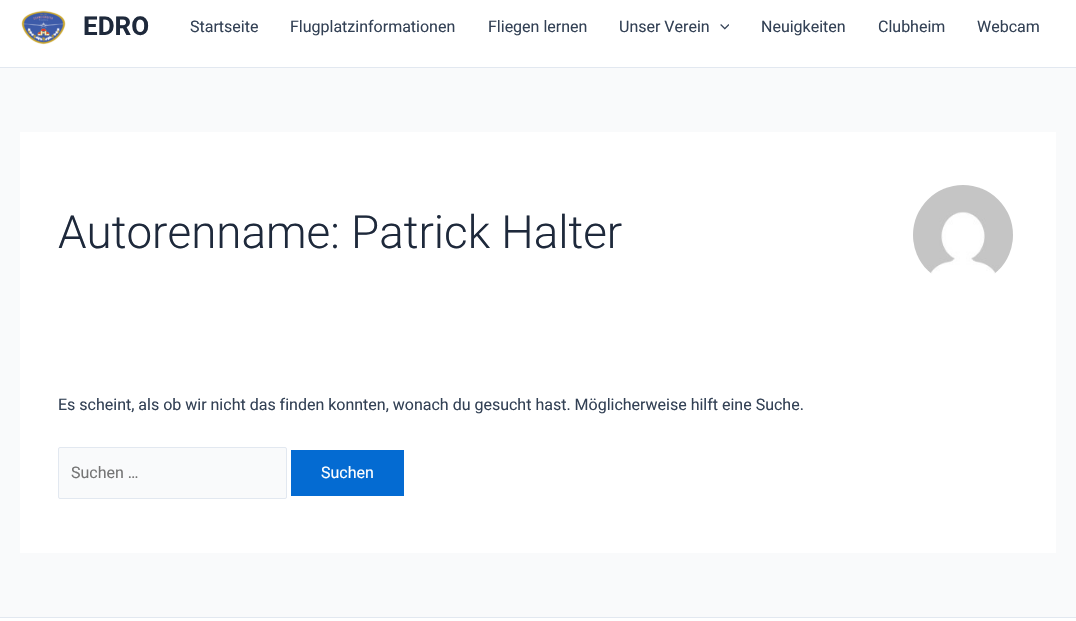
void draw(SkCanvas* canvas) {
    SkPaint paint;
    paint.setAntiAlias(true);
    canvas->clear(0xFFF9FAFB);
    paint.setColor(0xFFFFFFFF);
    canvas->drawRect(SkRect::MakeXYWH(0, 0, 1076, 67), paint);
    paint.setColor(0xFFE2E8F0);
    canvas->drawRect(SkRect::MakeXYWH(0, 67, 1076, 1), paint);
    canvas->drawImageRect(SkImages::DeferredFromEncodedData(SkData::MakeFromFileName("img1.png")), SkRect::MakeXYWH(21, 10, 45, 35), SkSamplingOptions());
    SkFont font1(fontMgr->matchFamilyStyle("Roboto", SkFontStyle::Bold()), 26);
    font1.setSubpixel(true);
    paint.setColor(0xFF1E293B);
    canvas->drawString("EDRO", 83, 35, font1, paint);
    SkFont font2(fontMgr->matchFamilyStyle("Roboto", SkFontStyle::Normal()), 16);
    font2.setSubpixel(true);
    paint.setColor(0xFF334155);
    canvas->drawString("Startseite", 190, 32, font2, paint);
    canvas->drawString("Flugplatzinformationen", 290, 32, font2, paint);
    canvas->drawString("Fliegen lernen", 488, 32, font2, paint);
    canvas->drawString("Unser Verein", 619, 32, font2, paint);
    canvas->drawImageRect(SkImages::DeferredFromEncodedData(SkData::MakeFromFileName("img2.png")), SkRect::MakeXYWH(720, 24, 9, 6), SkSamplingOptions());
    canvas->drawString("Neuigkeiten", 761, 32, font2, paint);
    canvas->drawString("Clubheim", 878, 32, font2, paint);
    canvas->drawString("Webcam", 977, 32, font2, paint);
    paint.setColor(0xFFFFFFFF);
    canvas->drawRect(SkRect::MakeXYWH(20, 132, 1036, 421), paint);
    SkFont font3(fontMgr->matchFamilyStyle("Roboto", SkFontStyle(300, SkFontStyle::kNormal_Width, SkFontStyle::kUpright_Slant)), 45.75f);
    font3.setSubpixel(true);
    paint.setColor(0xFF1E293B);
    canvas->drawString("Autorenname: Patrick Halter", 58, 248, font3, paint);
    canvas->drawImageRect(SkImages::DeferredFromEncodedData(SkData::MakeFromFileName("img3.png")), SkRect::MakeXYWH(913, 185, 100, 89), SkSamplingOptions());
    paint.setColor(0xFF334155);
    canvas->drawString("Es scheint, als ob wir nicht das finden konnten, wonach du gesucht hast. Möglicherweise hilft eine Suche.", 58, 410, font2, paint);
    paint.setColor(0xFFF9FAFB);
    canvas->drawRoundRect(SkRect::MakeXYWH(58.5f, 447.5f, 228, 51), 1.5f, 1.5f, paint);
    paint.setStyle(SkPaint::kStroke_Style);
    paint.setStrokeWidth(1);
    paint.setColor(0xFFE2E8F0);
    canvas->drawRoundRect(SkRect::MakeXYWH(58.5f, 447.5f, 228, 51), 1.5f, 1.5f, paint);
    paint.setStyle(SkPaint::kFill_Style);
    paint.setColor(0xFF757575);
    canvas->drawString("Suchen …", 71, 478, font2, paint);
    paint.setColor(0xFF046BD2);
    canvas->drawRect(SkRect::MakeXYWH(291, 450, 113, 46), paint);
    paint.setColor(0xFFFFFFFF);
    canvas->drawString("Suchen", 321, 478, font2, paint);
    canvas->drawRect(SkRect::MakeXYWH(0, 618, 1076, 3), paint);
    paint.setColor(0xFFE2E8F0);
    canvas->drawRect(SkRect::MakeXYWH(0, 617, 1076, 1), paint);
}
